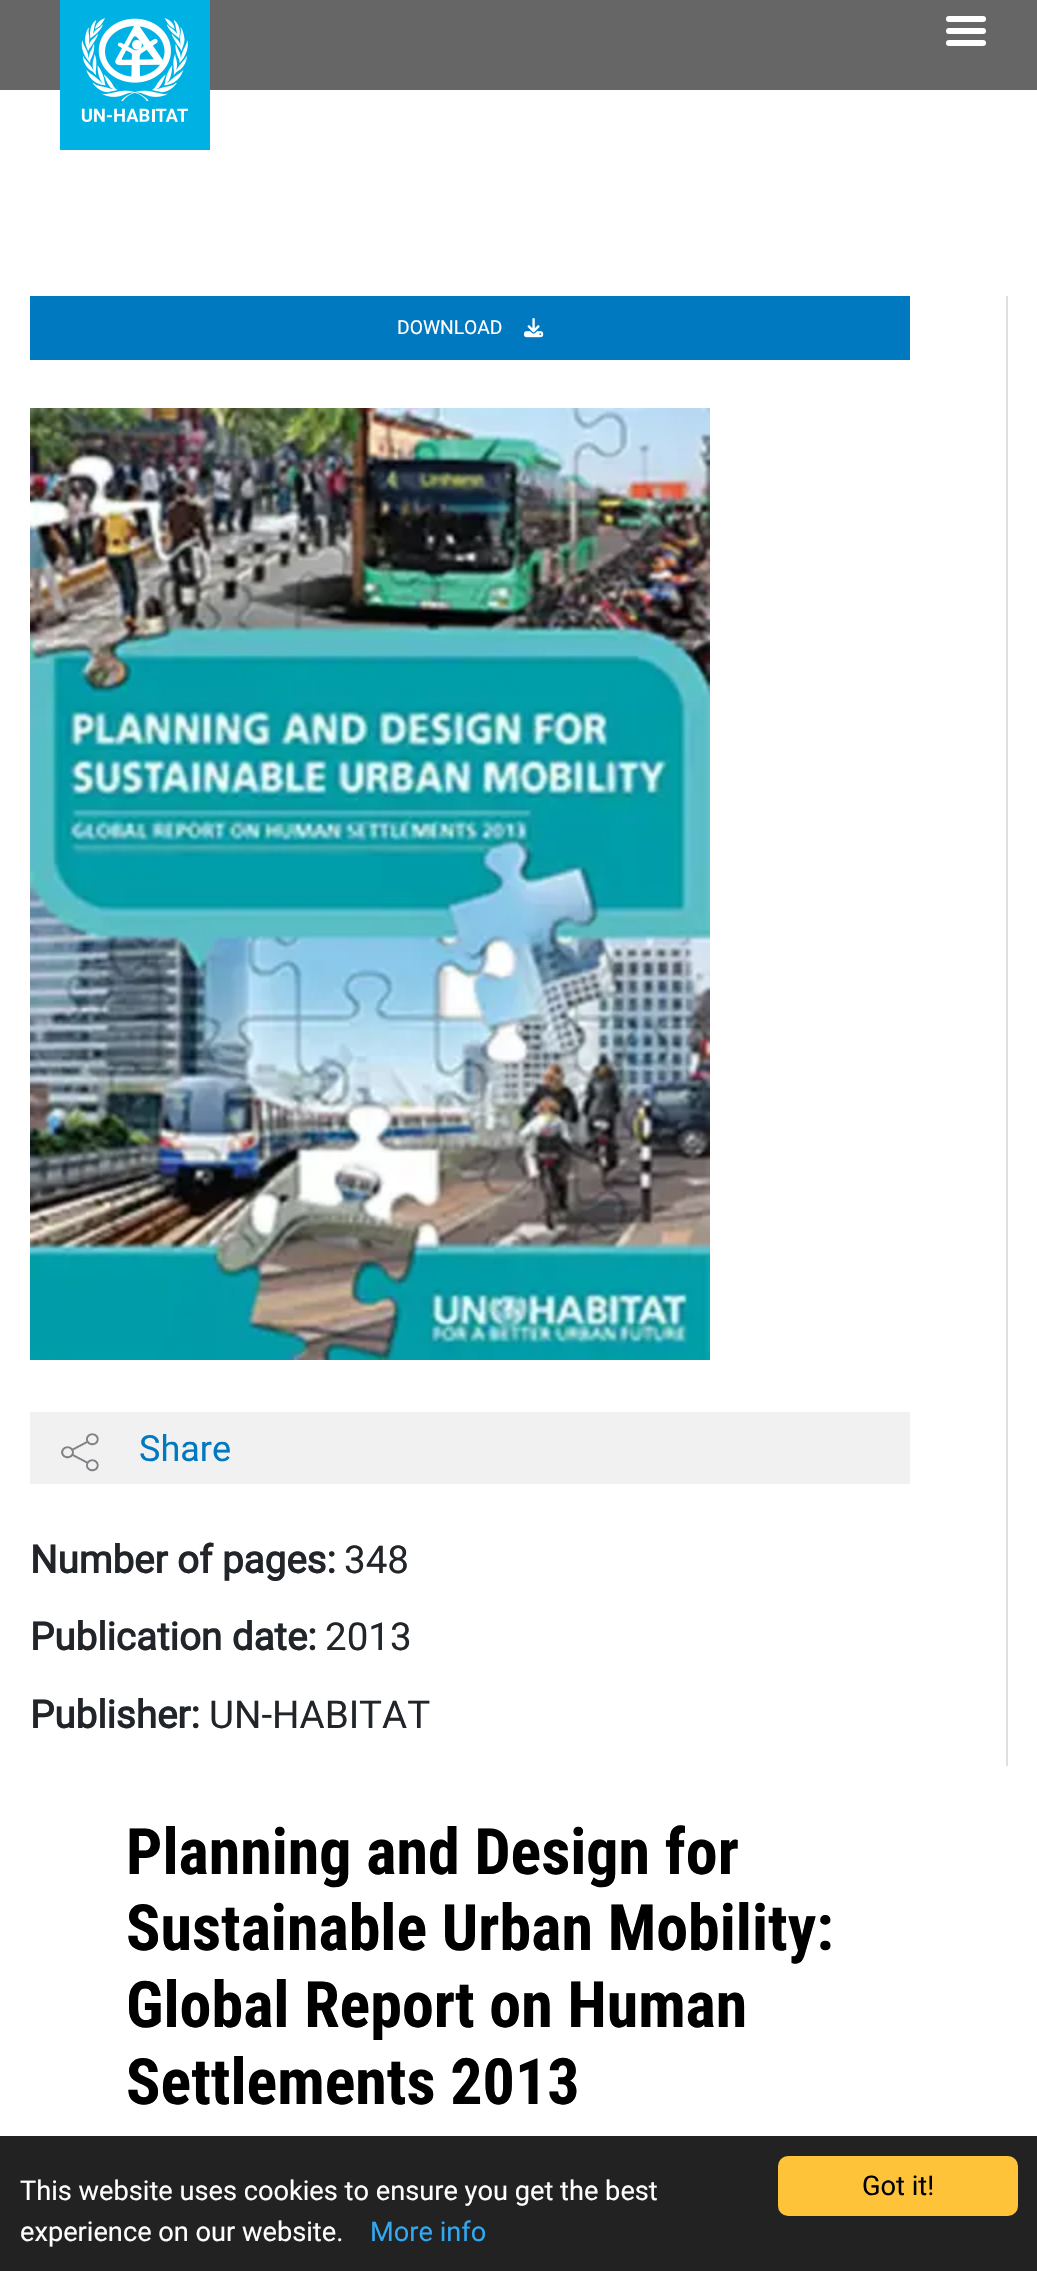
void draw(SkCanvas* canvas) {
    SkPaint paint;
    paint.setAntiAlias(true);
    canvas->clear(0xFFFFFFFF);
    paint.setColor(0xFF666666);
    canvas->drawRect(SkRect::MakeXYWH(0, 0, 1037, 90), paint);
    paint.setColor(0xFF00B2E3);
    canvas->drawRect(SkRect::MakeXYWH(60, 0, 150, 150), paint);
    canvas->drawImageRect(SkImages::DeferredFromEncodedData(SkData::MakeFromFileName("img1.png")), SkRect::MakeXYWH(81, 18, 107, 104), SkSamplingOptions());
    paint.setColor(0xFFFFFFFF);
    canvas->drawRoundRect(SkRect::MakeXYWH(946, 16, 40, 6), 3, 3, paint);
    canvas->drawRoundRect(SkRect::MakeXYWH(946, 28, 40, 6), 3, 3, paint);
    canvas->drawRoundRect(SkRect::MakeXYWH(946, 40, 40, 6), 3, 3, paint);
    paint.setColor(0xFFDFDFDF);
    canvas->drawRect(SkRect::MakeXYWH(1006, 296, 2, 1470), paint);
    paint.setColor(0xFF0079C0);
    canvas->drawRect(SkRect::MakeXYWH(30, 296, 880, 64), paint);
    SkFont font1(fontMgr->matchFamilyStyle("Roboto", SkFontStyle::Normal()), 19.25f);
    font1.setSubpixel(true);
    paint.setColor(0xFFFFFFFF);
    canvas->drawString("DOWNLOAD", 397, 334, font1, paint);
    canvas->drawImageRect(SkImages::DeferredFromEncodedData(SkData::MakeFromFileName("img2.png")), SkRect::MakeXYWH(524, 318, 20, 20), SkSamplingOptions());
    canvas->drawImageRect(SkImages::DeferredFromEncodedData(SkData::MakeFromFileName("img3.png")), SkRect::MakeXYWH(30, 408, 680, 952), SkSamplingOptions());
    paint.setColor(0xFFF1F1F2);
    canvas->drawRect(SkRect::MakeXYWH(30, 1412, 880, 72), paint);
    canvas->drawImageRect(SkImages::DeferredFromEncodedData(SkData::MakeFromFileName("img4.png")), SkRect::MakeXYWH(61, 1433, 38, 39), SkSamplingOptions());
    SkFont font2(fontMgr->matchFamilyStyle("Roboto", SkFontStyle::Normal()), 36);
    font2.setSubpixel(true);
    paint.setColor(0xFF0079C0);
    canvas->drawString("Share", 139, 1461, font2, paint);
    SkFont font3(fontMgr->matchFamilyStyle("Roboto", SkFontStyle::Bold()), 38.5f);
    font3.setSubpixel(true);
    paint.setColor(0xFF212529);
    canvas->drawString("Number of pages:", 30, 1573, font3, paint);
    SkFont font4(fontMgr->matchFamilyStyle("Roboto", SkFontStyle::Normal()), 38.5f);
    font4.setSubpixel(true);
    canvas->drawString("348", 344, 1573, font4, paint);
    canvas->drawString("Publication date:", 30, 1650, font3, paint);
    canvas->drawString("2013", 325, 1650, font4, paint);
    canvas->drawString("Publisher:", 30, 1728, font3, paint);
    canvas->drawString("UN-HABITAT", 209, 1728, font4, paint);
    SkFont font5(fontMgr->matchFamilyStyle("Roboto Condensed", SkFontStyle::Bold()), 64);
    font5.setSubpixel(true);
    paint.setColor(0xFF000000);
    canvas->drawString("Planning and Design for", 126, 1874, font5, paint);
    canvas->drawString("Sustainable Urban Mobility:", 126, 1950, font5, paint);
    canvas->drawString("Global Report on Human", 126, 2027, font5, paint);
    canvas->drawString("Settlements 2013", 126, 2104, font5, paint);
    paint.setColor(0xFF222222);
    canvas->drawRect(SkRect::MakeXYWH(0, 2136, 1037, 135), paint);
    SkFont font6(fontMgr->matchFamilyStyle("Roboto", SkFontStyle::Normal()), 27.2f);
    font6.setSubpixel(true);
    paint.setColor(0xFFFFFFFF);
    canvas->drawString("This website uses cookies to ensure you get the best", 20, 2200, font6, paint);
    canvas->drawString("experience on our website.", 20, 2241, font6, paint);
    paint.setColor(0xFF31A8F0);
    canvas->drawString("More info", 370, 2241, font6, paint);
    paint.setColor(0xFFFEC339);
    canvas->drawRoundRect(SkRect::MakeXYWH(778, 2156, 240, 60), 10, 10, paint);
    paint.setColor(0xFF000000);
    canvas->drawString("Got it!", 862, 2195, font6, paint);
}
